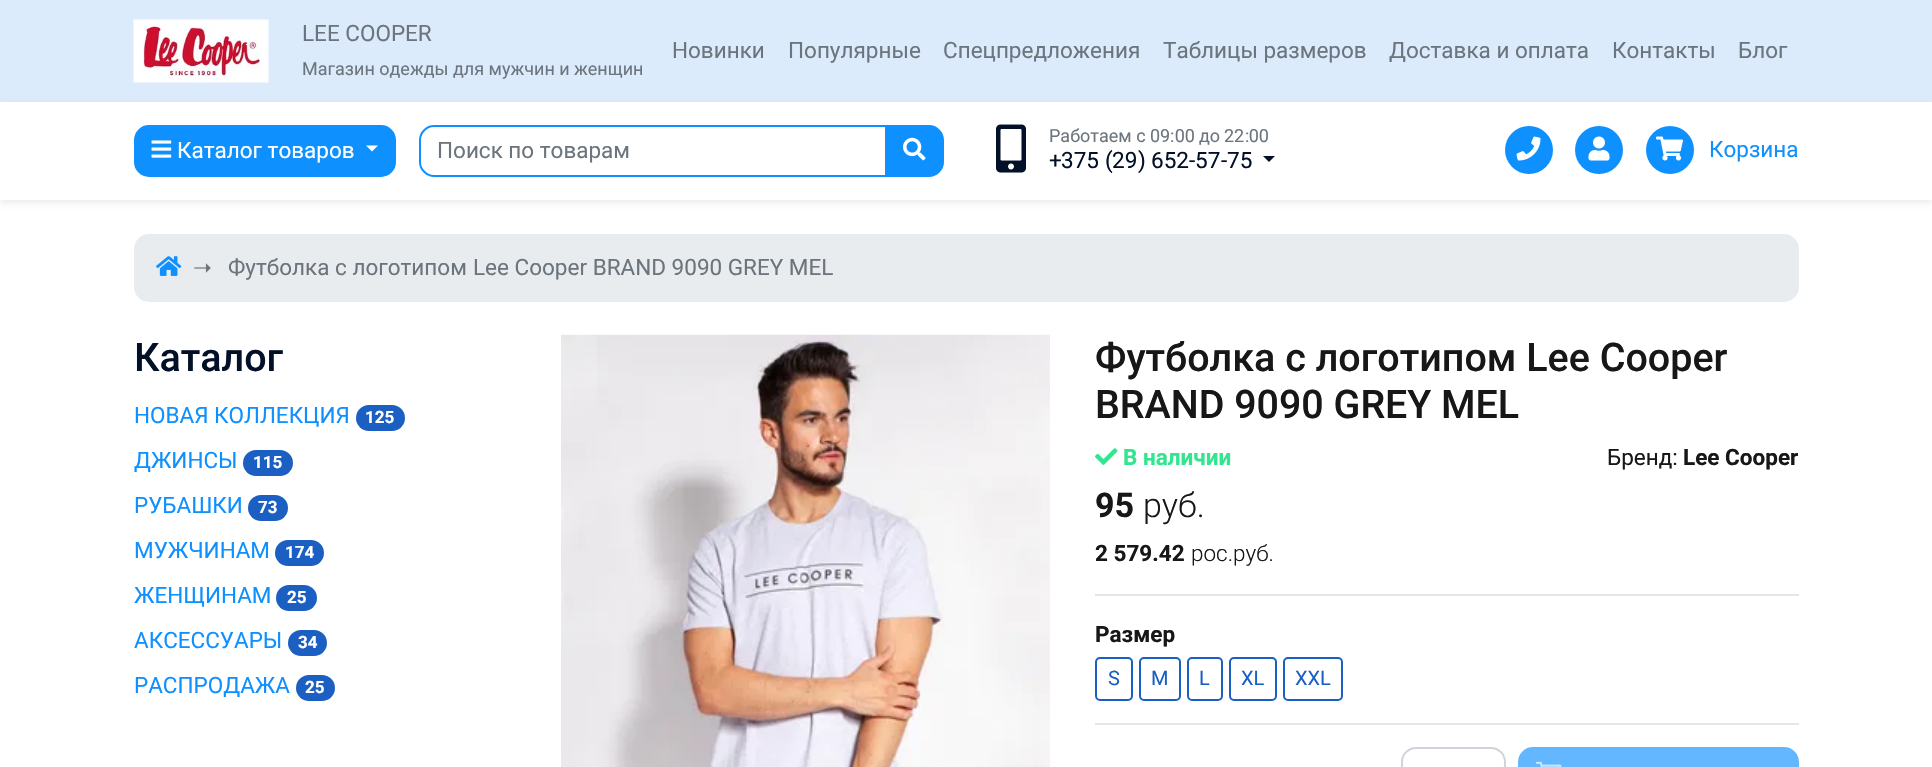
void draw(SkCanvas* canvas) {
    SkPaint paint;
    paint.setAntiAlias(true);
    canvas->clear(0xFFFFFFFF);
    paint.setColor(0xFFDBEBFB);
    canvas->drawRect(SkRect::MakeXYWH(0, 0, 1932, 102), paint);
    canvas->drawImageRect(SkImages::DeferredFromEncodedData(SkData::MakeFromFileName("img1.png")), SkRect::MakeXYWH(133, 19, 136, 64), SkSamplingOptions());
    SkFont font1(fontMgr->matchFamilyStyle("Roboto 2", SkFontStyle::Normal()), 22.5f);
    font1.setSubpixel(true);
    paint.setColor(0xFF6C757D);
    canvas->drawString("LEE COOPER", 302, 41, font1, paint);
    SkFont font2(fontMgr->matchFamilyStyle("Roboto", SkFontStyle::Normal()), 18);
    font2.setSubpixel(true);
    canvas->drawString("Магазин одежды для мужчин и женщин", 302, 75, font2, paint);
    SkFont font3(fontMgr->matchFamilyStyle("Roboto", SkFontStyle::Normal()), 22.5f);
    font3.setSubpixel(true);
    canvas->drawString("Новинки", 672, 58, font3, paint);
    canvas->drawString("Популярные", 788, 58, font3, paint);
    canvas->drawString("Спецпредложения", 943, 58, font3, paint);
    canvas->drawString("Таблицы размеров", 1163, 58, font3, paint);
    canvas->drawString("Доставка и оплата", 1389, 58, font3, paint);
    canvas->drawString("Контакты", 1612, 58, font3, paint);
    canvas->drawString("Блог", 1738, 58, font3, paint);
    canvas->save();
    canvas->clipPath(SkPathBuilder(SkPathFillType::kEvenOdd).moveTo(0, 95).lineTo(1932, 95).lineTo(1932, 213).lineTo(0, 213).close().moveTo(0, 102).lineTo(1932, 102).lineTo(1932, 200).lineTo(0, 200).close().detach(), true);
    paint.setColor(0x12000000);
    paint.setMaskFilter(SkMaskFilter::MakeBlur(kNormal_SkBlurStyle, 3));
    canvas->drawRect(SkRect::MakeXYWH(0, 105, 1932, 98), paint);
    paint.setMaskFilter(nullptr);
    canvas->restore();
    paint.setColor(0xFF0F90FF);
    canvas->drawRoundRect(SkRect::MakeXYWH(135, 126, 260, 50), 14, 14, paint);
    paint.setStyle(SkPaint::kStroke_Style);
    paint.setStrokeWidth(2);
    canvas->drawRoundRect(SkRect::MakeXYWH(135, 126, 260, 50), 14, 14, paint);
    canvas->drawImageRect(SkImages::DeferredFromEncodedData(SkData::MakeFromFileName("img2.png")), SkRect::MakeXYWH(151, 140, 21, 18), SkSamplingOptions());
    paint.setStyle(SkPaint::kFill_Style);
    paint.setColor(0xFFFFFFFF);
    canvas->drawString("Каталог товаров", 177, 158, font3, paint);
    canvas->drawPath(SkPathBuilder().moveTo(366, 145.5f).lineTo(378, 145.5f).lineTo(372, 151.5f).close().detach(), paint);
    paint.setStyle(SkPaint::kStroke_Style);
    paint.setColor(0xFF0F90FF);
    canvas->drawPath(SkPathBuilder().moveTo(434, 126).lineTo(886, 126).lineTo(886, 176).lineTo(434, 176).cubicTo(426.5f, 176, 420, 169.5f, 420, 162).lineTo(420, 140).cubicTo(420, 132.5f, 426.5f, 126, 434, 126).close().detach(), paint);
    paint.setStyle(SkPaint::kFill_Style);
    paint.setColor(0xFF6C757D);
    canvas->drawString("Поиск по товарам", 437, 158, font3, paint);
    paint.setColor(0xFF0F90FF);
    canvas->drawPath(SkPathBuilder().moveTo(886, 126).lineTo(929, 126).cubicTo(936.5f, 126, 943, 132.5f, 943, 140).lineTo(943, 162).cubicTo(943, 169.5f, 936.5f, 176, 929, 176).lineTo(886, 176).close().detach(), paint);
    paint.setStyle(SkPaint::kStroke_Style);
    canvas->drawPath(SkPathBuilder().moveTo(886, 126).lineTo(929, 126).cubicTo(936.5f, 126, 943, 132.5f, 943, 140).lineTo(943, 162).cubicTo(943, 169.5f, 936.5f, 176, 929, 176).lineTo(886, 176).close().detach(), paint);
    canvas->drawImageRect(SkImages::DeferredFromEncodedData(SkData::MakeFromFileName("img3.png")), SkRect::MakeXYWH(903, 137, 23, 24), SkSamplingOptions());
    canvas->drawImageRect(SkImages::DeferredFromEncodedData(SkData::MakeFromFileName("img4.png")), SkRect::MakeXYWH(996, 124, 30, 49), SkSamplingOptions());
    paint.setStyle(SkPaint::kFill_Style);
    paint.setColor(0xFF6C757D);
    canvas->drawString("Работаем с", 1049, 142, font2, paint);
    SkFont font4(fontMgr->matchFamilyStyle("Roboto 2", SkFontStyle::Normal()), 18);
    font4.setSubpixel(true);
    canvas->drawString("09 00", 1150, 142, font4, paint);
    canvas->drawString("22 00", 1224, 142, font4, paint);
    canvas->drawString(":", 1170, 142, font2, paint);
    canvas->drawString("до", 1199, 142, font2, paint);
    canvas->drawString(":", 1245, 142, font2, paint);
    paint.setColor(0xFF021127);
    canvas->drawString("+", 1049, 168, font3, paint);
    canvas->drawString("375", 1061, 168, font1, paint);
    canvas->drawString("(", 1105, 168, font3, paint);
    canvas->drawString("29", 1112, 168, font1, paint);
    canvas->drawString(")", 1138, 168, font3, paint);
    canvas->drawString("652", 1151, 168, font1, paint);
    canvas->drawString("-", 1189, 168, font3, paint);
    canvas->drawString("57", 1195, 168, font1, paint);
    canvas->drawString("-", 1221, 168, font3, paint);
    canvas->drawString("75", 1227, 168, font1, paint);
    canvas->drawPath(SkPathBuilder().moveTo(1263, 156).lineTo(1275, 156).lineTo(1269, 162).close().detach(), paint);
    paint.setColor(0xFF0F90FF);
    canvas->drawCircle(1529, 150, 24, paint);
    canvas->drawImageRect(SkImages::DeferredFromEncodedData(SkData::MakeFromFileName("img5.png")), SkRect::MakeXYWH(1516, 136, 25, 25), SkSamplingOptions());
    canvas->drawCircle(1599, 150, 24, paint);
    canvas->drawImageRect(SkImages::DeferredFromEncodedData(SkData::MakeFromFileName("img6.png")), SkRect::MakeXYWH(1588, 136, 22, 25), SkSamplingOptions());
    canvas->drawCircle(1670, 150, 24, paint);
    canvas->drawImageRect(SkImages::DeferredFromEncodedData(SkData::MakeFromFileName("img7.png")), SkRect::MakeXYWH(1656, 136, 27, 25), SkSamplingOptions());
    canvas->drawString("Корзина", 1709, 157, font3, paint);
    paint.setColor(0xFFE9ECEF);
    canvas->drawRoundRect(SkRect::MakeXYWH(134, 234, 1665, 68), 15, 15, paint);
    canvas->drawImageRect(SkImages::DeferredFromEncodedData(SkData::MakeFromFileName("img8.png")), SkRect::MakeXYWH(156, 256, 26, 20), SkSamplingOptions());
    SkFont font5(fontMgr->matchFamilyStyle("DejaVu Sans", SkFontStyle::Normal()), 22.5f);
    font5.setSubpixel(true);
    paint.setColor(0xFF6C757D);
    canvas->drawString("➝", 193, 275, font5, paint);
    canvas->drawString("Футболка с логотипом", 228, 275, font3, paint);
    canvas->drawString("Lee Cooper BRAND 9090 GREY MEL", 473, 275, font1, paint);
    SkFont font6(fontMgr->matchFamilyStyle("Roboto", SkFontStyle(500, SkFontStyle::kNormal_Width, SkFontStyle::kUpright_Slant)), 39.4f);
    font6.setSubpixel(true);
    paint.setColor(0xFF021127);
    canvas->drawString("Каталог", 134, 371, font6, paint);
    paint.setColor(0xFF0F90FF);
    canvas->drawString("НОВАЯ КОЛЛЕКЦИЯ", 134, 423, font3, paint);
    paint.setColor(0xFF1B5FC3);
    canvas->drawRoundRect(SkRect::MakeXYWH(356, 405, 49, 26), 13, 13, paint);
    SkFont font7(fontMgr->matchFamilyStyle("Roboto", SkFontStyle::Bold()), 17);
    font7.setSubpixel(true);
    paint.setColor(0xFFFFFFFF);
    canvas->drawString("125", 365, 423, font7, paint);
    paint.setColor(0xFF0F90FF);
    canvas->drawString("ДЖИНСЫ", 134, 468, font3, paint);
    paint.setColor(0xFF1B5FC3);
    canvas->drawRoundRect(SkRect::MakeXYWH(243, 450, 50, 26), 13, 13, paint);
    paint.setColor(0xFFFFFFFF);
    canvas->drawString("115", 253, 468, font7, paint);
    paint.setColor(0xFF0F90FF);
    canvas->drawString("РУБАШКИ", 134, 513, font3, paint);
    paint.setColor(0xFF1B5FC3);
    canvas->drawRoundRect(SkRect::MakeXYWH(248, 495, 40, 26), 13, 13, paint);
    paint.setColor(0xFFFFFFFF);
    canvas->drawString("73", 258, 513, font7, paint);
    paint.setColor(0xFF0F90FF);
    canvas->drawString("МУЖЧИНАМ", 134, 558, font3, paint);
    paint.setColor(0xFF1B5FC3);
    canvas->drawRoundRect(SkRect::MakeXYWH(275, 540, 49, 26), 13, 13, paint);
    paint.setColor(0xFFFFFFFF);
    canvas->drawString("174", 285, 558, font7, paint);
    paint.setColor(0xFF0F90FF);
    canvas->drawString("ЖЕНЩИНАМ", 134, 603, font3, paint);
    paint.setColor(0xFF1B5FC3);
    canvas->drawRoundRect(SkRect::MakeXYWH(276, 585, 41, 26), 13, 13, paint);
    paint.setColor(0xFFFFFFFF);
    canvas->drawString("25", 287, 603, font7, paint);
    paint.setColor(0xFF0F90FF);
    canvas->drawString("АКСЕССУАРЫ", 134, 648, font3, paint);
    paint.setColor(0xFF1B5FC3);
    canvas->drawRoundRect(SkRect::MakeXYWH(288, 630, 39, 26), 13, 13, paint);
    paint.setColor(0xFFFFFFFF);
    canvas->drawString("34", 298, 648, font7, paint);
    paint.setColor(0xFF0F90FF);
    canvas->drawString("РАСПРОДАЖА", 134, 693, font3, paint);
    paint.setColor(0xFF1B5FC3);
    canvas->drawRoundRect(SkRect::MakeXYWH(296, 675, 39, 26), 13, 13, paint);
    paint.setColor(0xFFFFFFFF);
    canvas->drawString("25", 305, 693, font7, paint);
    canvas->drawImageRect(SkImages::DeferredFromEncodedData(SkData::MakeFromFileName("img9.png")), SkRect::MakeXYWH(561, 334, 489, 433), SkSamplingOptions());
    paint.setColor(0xFF171717);
    canvas->drawString("Футболка с логотипом Lee Cooper", 1095, 371, font6, paint);
    canvas->drawString("BRAND 9090 GREY MEL", 1095, 418, font6, paint);
    canvas->drawImageRect(SkImages::DeferredFromEncodedData(SkData::MakeFromFileName("img10.png")), SkRect::MakeXYWH(1095, 448, 23, 17), SkSamplingOptions());
    SkFont font8(fontMgr->matchFamilyStyle("Roboto", SkFontStyle::Bold()), 22.5f);
    font8.setSubpixel(true);
    paint.setColor(0xFF31E68E);
    canvas->drawString("В наличии", 1123, 465, font8, paint);
    paint.setColor(0xFF171717);
    canvas->drawString("Бренд:", 1607, 465, font3, paint);
    canvas->drawString("Lee Cooper", 1683, 465, font8, paint);
    SkFont font9(fontMgr->matchFamilyStyle("Roboto", SkFontStyle::Bold()), 34);
    font9.setSubpixel(true);
    canvas->drawString("95", 1095, 517, font9, paint);
    SkFont font10(fontMgr->matchFamilyStyle("Roboto", SkFontStyle(300, SkFontStyle::kNormal_Width, SkFontStyle::kUpright_Slant)), 34);
    font10.setSubpixel(true);
    canvas->drawString("руб.", 1143, 517, font10, paint);
    canvas->drawString("2 579.42", 1095, 561, font8, paint);
    SkFont font11(fontMgr->matchFamilyStyle("Roboto", SkFontStyle(300, SkFontStyle::kNormal_Width, SkFontStyle::kUpright_Slant)), 22.5f);
    font11.setSubpixel(true);
    canvas->drawString("рос.руб.", 1191, 561, font11, paint);
    paint.setColor(0xFFE6E6E6);
    canvas->drawRect(SkRect::MakeXYWH(1095, 594, 704, 2), paint);
    paint.setColor(0xFF171717);
    canvas->drawString("Размер", 1095, 642, font8, paint);
    paint.setStyle(SkPaint::kStroke_Style);
    paint.setColor(0xFF1B5FC3);
    canvas->drawRoundRect(SkRect::MakeXYWH(1096, 658, 36, 42), 4, 4, paint);
    SkFont font12(fontMgr->matchFamilyStyle("Roboto 2", SkFontStyle::Normal()), 20);
    font12.setSubpixel(true);
    paint.setStyle(SkPaint::kFill_Style);
    canvas->drawString("S", 1108, 685, font12, paint);
    paint.setStyle(SkPaint::kStroke_Style);
    canvas->drawRoundRect(SkRect::MakeXYWH(1140, 658, 40, 42), 4, 4, paint);
    paint.setStyle(SkPaint::kFill_Style);
    canvas->drawString("M", 1151, 685, font12, paint);
    paint.setStyle(SkPaint::kStroke_Style);
    canvas->drawRoundRect(SkRect::MakeXYWH(1188, 658, 34, 42), 4, 4, paint);
    paint.setStyle(SkPaint::kFill_Style);
    canvas->drawString("L", 1199, 685, font12, paint);
    paint.setStyle(SkPaint::kStroke_Style);
    canvas->drawRoundRect(SkRect::MakeXYWH(1230, 658, 46, 42), 4, 4, paint);
    paint.setStyle(SkPaint::kFill_Style);
    canvas->drawString("XL", 1241, 685, font12, paint);
    paint.setStyle(SkPaint::kStroke_Style);
    canvas->drawRoundRect(SkRect::MakeXYWH(1284, 658, 58, 42), 4, 4, paint);
    paint.setStyle(SkPaint::kFill_Style);
    canvas->drawString("XXL", 1295, 685, font12, paint);
    paint.setColor(0xFFE6E6E6);
    canvas->drawRect(SkRect::MakeXYWH(1095, 723, 704, 2), paint);
    paint.setStyle(SkPaint::kStroke_Style);
    paint.setColor(0xFFCED4DA);
    canvas->drawRoundRect(SkRect::MakeXYWH(1402, 748, 103, 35), 14, 14, paint);
    paint.setStyle(SkPaint::kFill_Style);
    paint.setColor(0xFF63B7FF);
    canvas->drawRoundRect(SkRect::MakeXYWH(1519, 748, 279, 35), 14, 14, paint);
    paint.setStyle(SkPaint::kStroke_Style);
    canvas->drawRoundRect(SkRect::MakeXYWH(1519, 748, 279, 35), 14, 14, paint);
    canvas->drawImageRect(SkImages::DeferredFromEncodedData(SkData::MakeFromFileName("img11.png")), SkRect::MakeXYWH(1536, 761, 26, 6), SkSamplingOptions());
}
